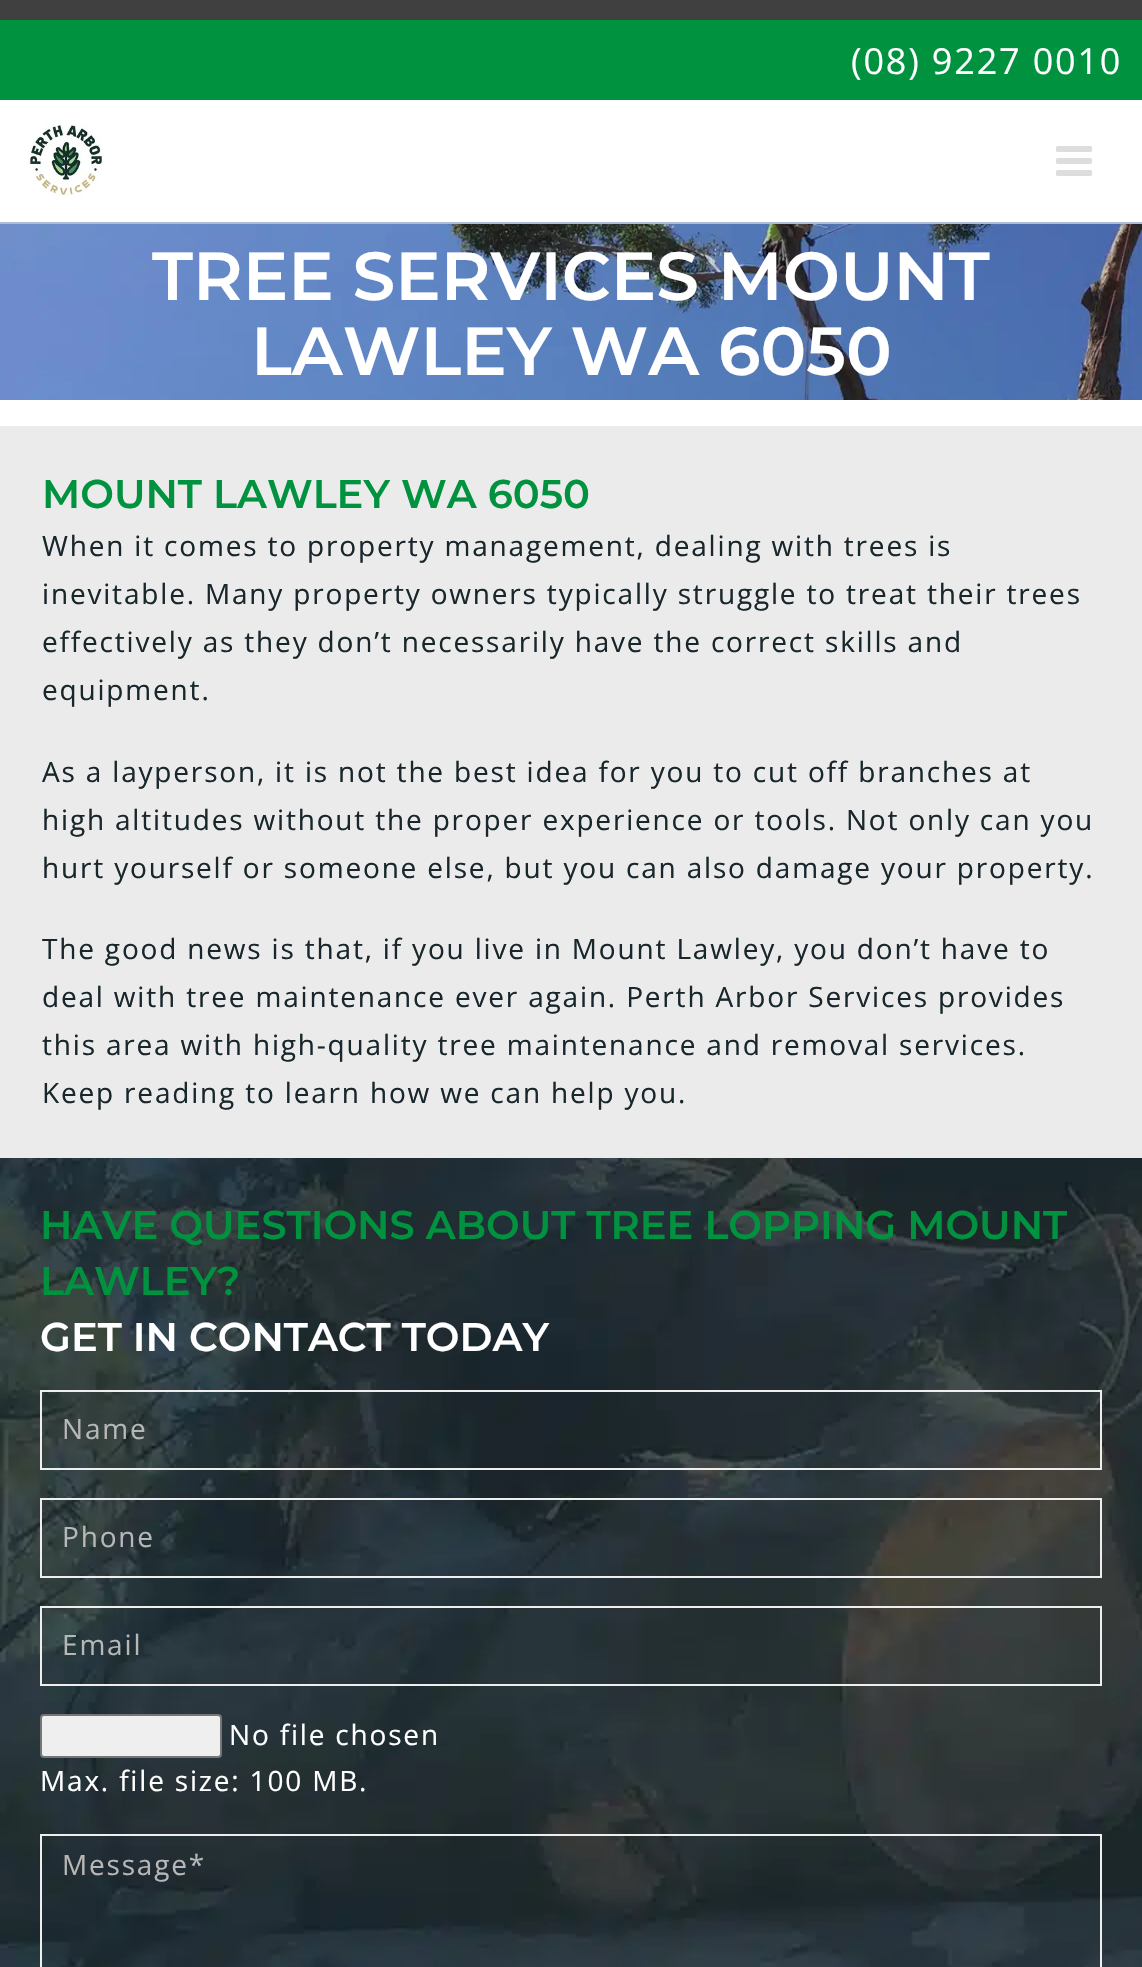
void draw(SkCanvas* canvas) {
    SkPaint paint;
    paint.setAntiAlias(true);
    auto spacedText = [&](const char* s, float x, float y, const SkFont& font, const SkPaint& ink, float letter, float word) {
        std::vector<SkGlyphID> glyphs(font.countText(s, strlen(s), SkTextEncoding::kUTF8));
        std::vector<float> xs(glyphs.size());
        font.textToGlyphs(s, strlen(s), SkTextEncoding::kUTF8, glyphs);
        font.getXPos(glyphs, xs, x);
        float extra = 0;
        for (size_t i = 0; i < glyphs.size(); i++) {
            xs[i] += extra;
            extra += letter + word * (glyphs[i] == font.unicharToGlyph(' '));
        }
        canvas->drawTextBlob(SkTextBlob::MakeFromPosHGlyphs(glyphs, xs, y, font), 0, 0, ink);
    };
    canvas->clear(0xFFFFFFFF);
    paint.setColor(0xFFADBEDD);
    canvas->drawRect(SkRect::MakeXYWH(0, 222, 1142, 2), paint);
    paint.setColor(0xFF404040);
    canvas->drawRect(SkRect::MakeXYWH(0, 0, 1142, 20), paint);
    paint.setColor(0xFF00923F);
    canvas->drawRect(SkRect::MakeXYWH(0, 20, 1142, 80), paint);
    SkFont font1(fontMgr->matchFamilyStyle("Open Sans", SkFontStyle::Normal()), 36);
    font1.setSubpixel(true);
    paint.setColor(0xFFFFFFFF);
    spacedText("(08) 9227 0010", 851, 74, font1, paint, 1.82f, 0);
    canvas->drawImageRect(SkImages::DeferredFromEncodedData(SkData::MakeFromFileName("img1.png")), SkRect::MakeXYWH(27, 120, 76, 80), SkSamplingOptions());
    canvas->drawImageRect(SkImages::DeferredFromEncodedData(SkData::MakeFromFileName("img2.png")), SkRect::MakeXYWH(1056, 146, 36, 30), SkSamplingOptions());
    canvas->drawImageRect(SkImages::DeferredFromEncodedData(SkData::MakeFromFileName("img3.png")), SkRect::MakeXYWH(0, 224, 1142, 176), SkSamplingOptions());
    SkFont font2(fontMgr->matchFamilyStyle("Montserrat", SkFontStyle(600, SkFontStyle::kNormal_Width, SkFontStyle::kUpright_Slant)), 68);
    font2.setSubpixel(true);
    canvas->drawString("TREE SERVICES MOUNT", 152, 300, font2, paint);
    canvas->drawString("LAWLEY WA 6050", 251, 375, font2, paint);
    paint.setColor(0xFFEBEBEB);
    canvas->drawRect(SkRect::MakeXYWH(0, 426, 1142, 732), paint);
    SkFont font3(fontMgr->matchFamilyStyle("Montserrat", SkFontStyle(600, SkFontStyle::kNormal_Width, SkFontStyle::kUpright_Slant)), 40);
    font3.setSubpixel(true);
    paint.setColor(0xFF00923F);
    canvas->drawString("MOUNT LAWLEY WA 6050", 42, 508, font3, paint);
    SkFont font4(fontMgr->matchFamilyStyle("Open Sans", SkFontStyle::Normal()), 28);
    font4.setSubpixel(true);
    paint.setColor(0xFF19272C);
    spacedText("When it comes to property management, dealing with trees is", 42, 556, font4, paint, 1.82f, 0);
    spacedText("inevitable. Many property owners typically struggle to treat their trees", 42, 604, font4, paint, 1.82f, 0);
    spacedText("effectively as they don’t necessarily have the correct skills and", 42, 652, font4, paint, 1.82f, 0);
    spacedText("equipment.", 42, 700, font4, paint, 1.82f, 0);
    spacedText("As a layperson, it is not the best idea for you to cut off branches at", 42, 782, font4, paint, 1.82f, 0);
    spacedText("high altitudes without the proper experience or tools. Not only can you", 42, 830, font4, paint, 1.82f, 0);
    spacedText("hurt yourself or someone else, but you can also damage your property.", 42, 878, font4, paint, 1.82f, 0);
    spacedText("The good news is that, if you live in Mount Lawley, you don’t have to", 42, 959, font4, paint, 1.82f, 0);
    spacedText("deal with tree maintenance ever again. Perth Arbor Services provides", 42, 1007, font4, paint, 1.82f, 0);
    spacedText("this area with high-quality tree maintenance and removal services.", 42, 1055, font4, paint, 1.82f, 0);
    spacedText("Keep reading to learn how we can help you.", 42, 1103, font4, paint, 1.82f, 0);
    canvas->drawImageRect(SkImages::DeferredFromEncodedData(SkData::MakeFromFileName("img4.png")), SkRect::MakeXYWH(0, 1158, 1142, 809), SkSamplingOptions());
    paint.setColor(0xFF00923F);
    canvas->drawString("HAVE QUESTIONS ABOUT TREE LOPPING MOUNT", 40, 1239, font3, paint);
    canvas->drawString("LAWLEY?", 40, 1295, font3, paint);
    paint.setColor(0xFFFFFFFF);
    canvas->drawString("GET IN CONTACT TODAY", 40, 1351, font3, paint);
    paint.setStyle(SkPaint::kStroke_Style);
    paint.setStrokeWidth(2);
    paint.setColor(0xFFEEEEEE);
    canvas->drawRect(SkRect::MakeXYWH(41, 1391, 1060, 78), paint);
    paint.setStyle(SkPaint::kFill_Style);
    paint.setColor(0xFFB7B7B7);
    spacedText("Name", 62, 1439, font4, paint, 1.82f, 0);
    paint.setStyle(SkPaint::kStroke_Style);
    paint.setColor(0xFFEEEEEE);
    canvas->drawRect(SkRect::MakeXYWH(41, 1499, 1060, 78), paint);
    paint.setStyle(SkPaint::kFill_Style);
    paint.setColor(0xFFB7B7B7);
    spacedText("Phone", 62, 1547, font4, paint, 1.82f, 0);
    paint.setStyle(SkPaint::kStroke_Style);
    paint.setColor(0xFFEEEEEE);
    canvas->drawRect(SkRect::MakeXYWH(41, 1607, 1060, 78), paint);
    paint.setStyle(SkPaint::kFill_Style);
    paint.setColor(0xFFB7B7B7);
    spacedText("Email", 62, 1655, font4, paint, 1.82f, 0);
    paint.setColor(0xFFEFEFEF);
    canvas->drawRoundRect(SkRect::MakeXYWH(41, 1715, 180, 42), 3, 3, paint);
    paint.setStyle(SkPaint::kStroke_Style);
    paint.setColor(0xFF767676);
    canvas->drawRoundRect(SkRect::MakeXYWH(41, 1715, 180, 42), 3, 3, paint);
    paint.setStyle(SkPaint::kFill_Style);
    paint.setColor(0xFFFFFFFF);
    spacedText("No file chosen", 229, 1745, font4, paint, 1.82f, 0);
    spacedText("Max. file size: 100 MB.", 40, 1791, font4, paint, 1.82f, 0);
    paint.setStyle(SkPaint::kStroke_Style);
    paint.setColor(0xFFEEEEEE);
    canvas->drawRect(SkRect::MakeXYWH(41, 1835, 1060, 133), paint);
    paint.setStyle(SkPaint::kFill_Style);
    paint.setColor(0xFFB7B7B7);
    spacedText("Message*", 62, 1875, font4, paint, 1.82f, 0);
}
